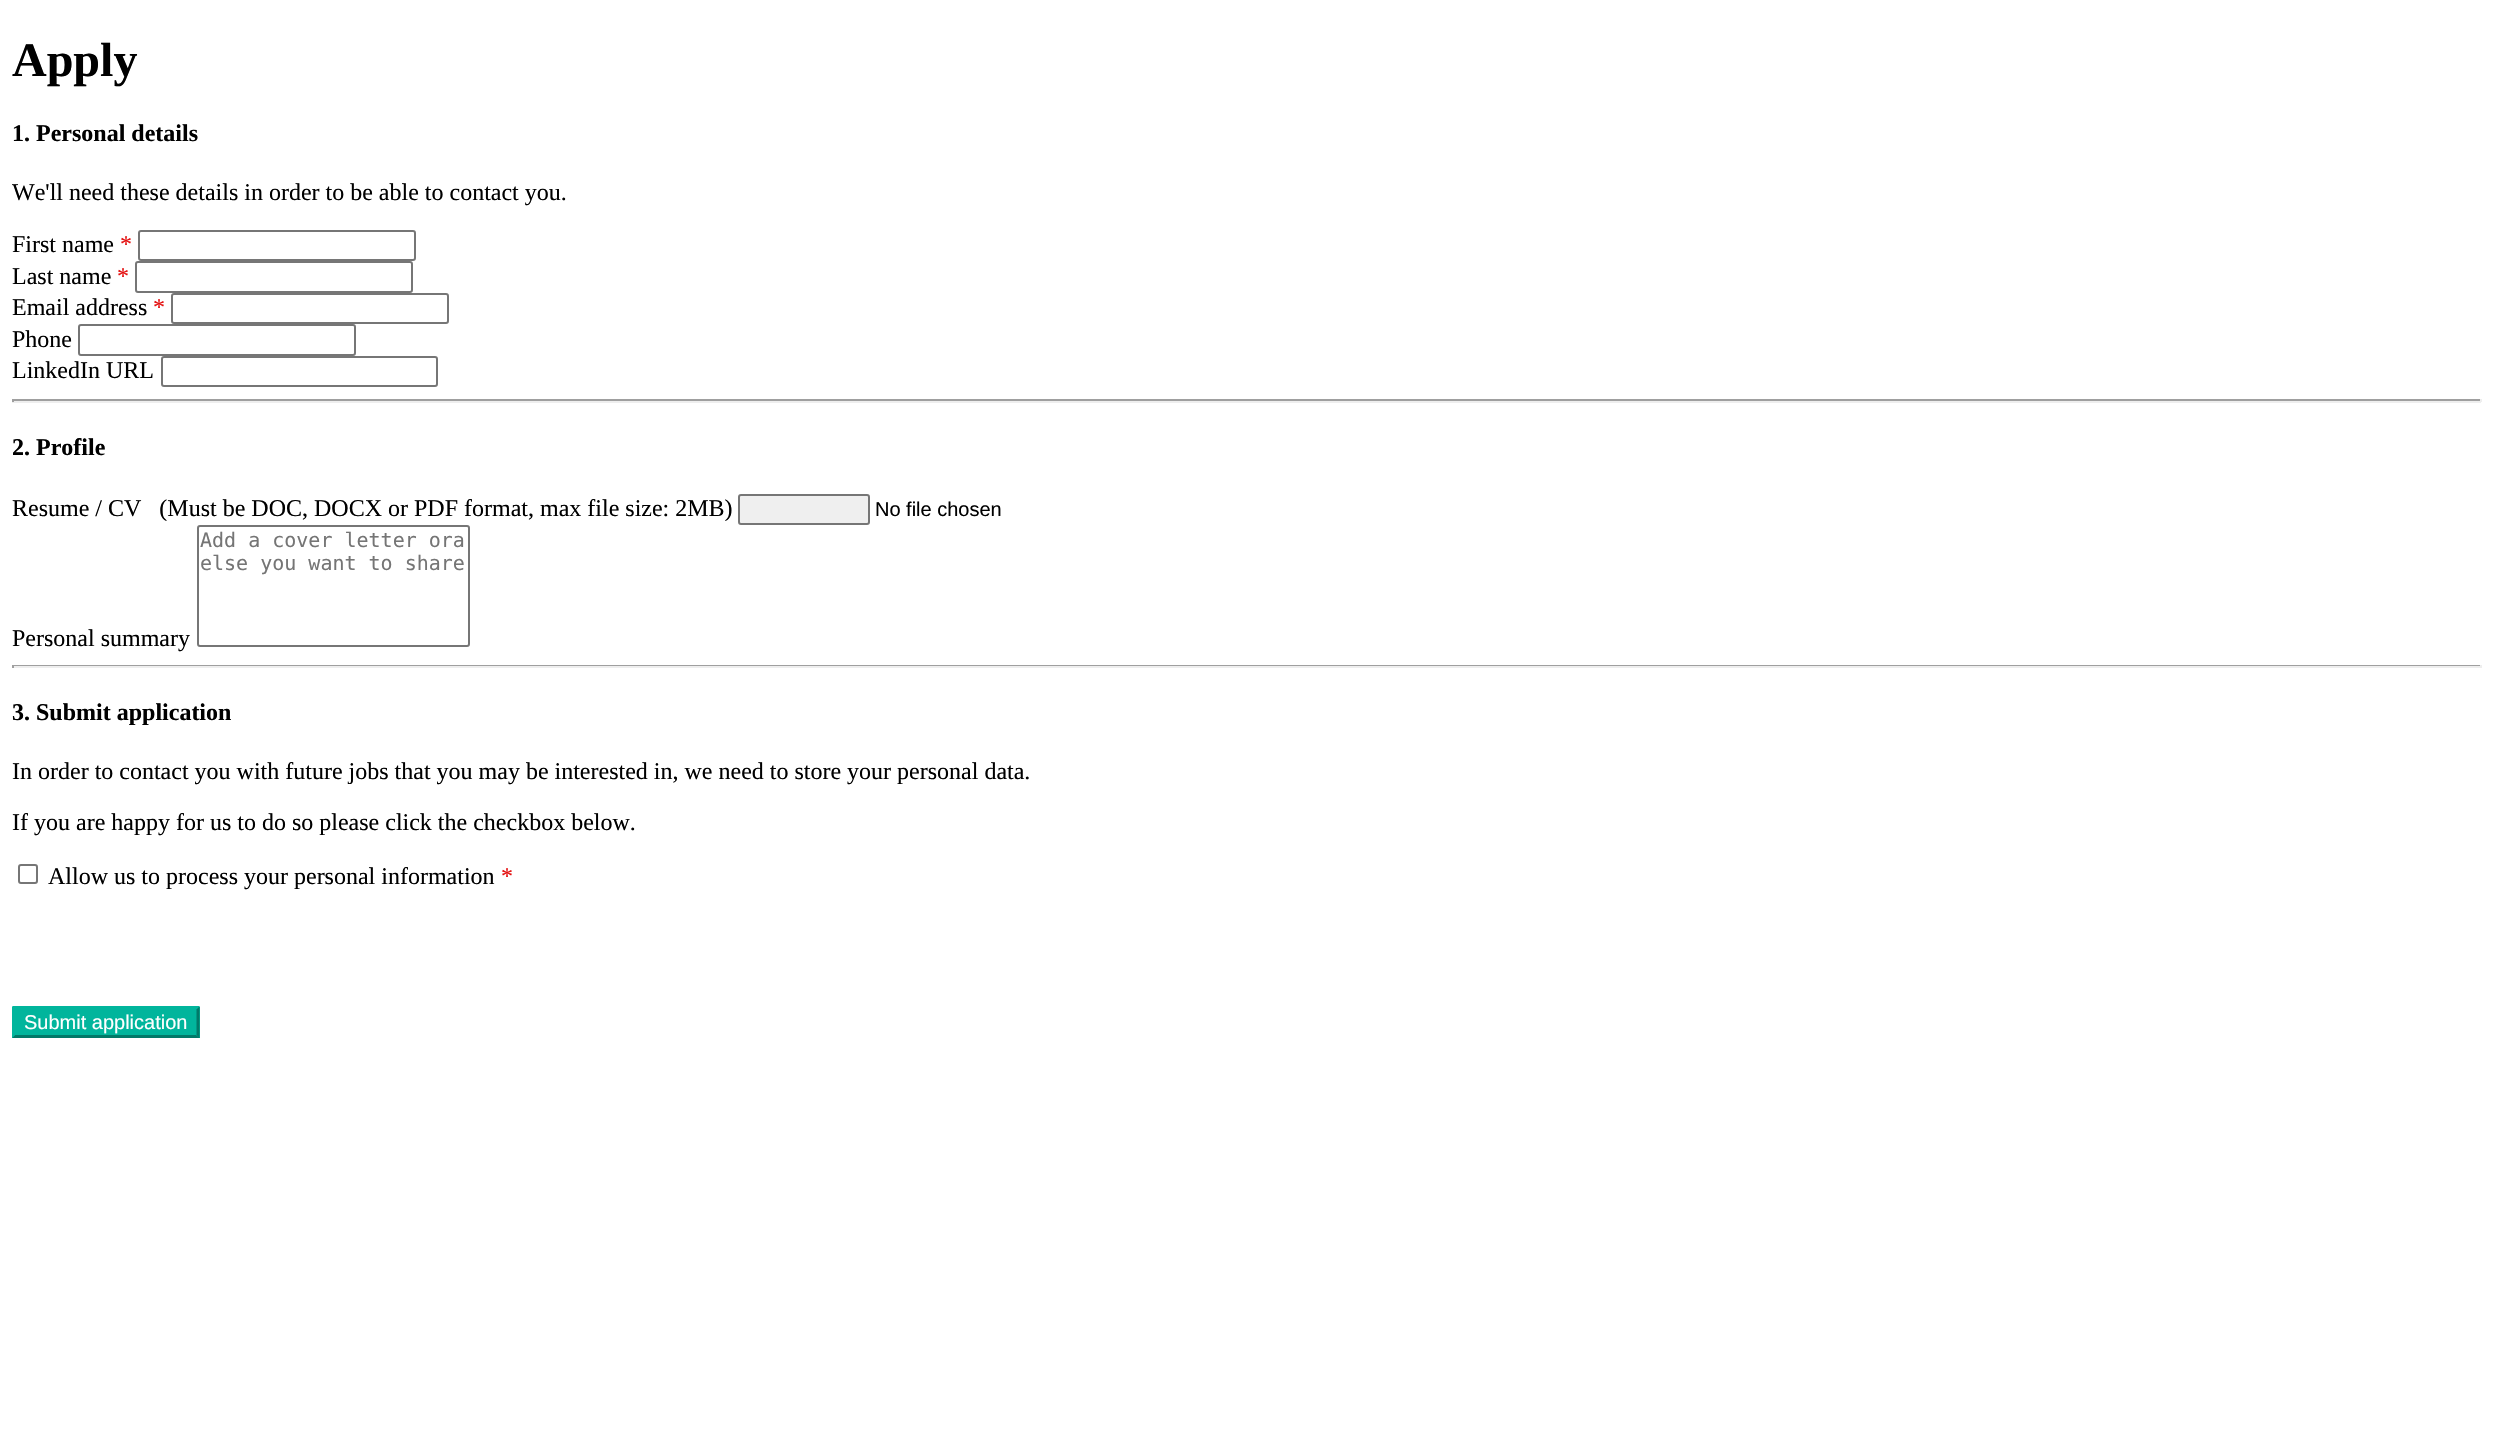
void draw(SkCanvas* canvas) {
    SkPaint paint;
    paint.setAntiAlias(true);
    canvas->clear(0xFFFFFFFF);
    SkFont font1(fontMgr->matchFamilyStyle("Liberation Serif", SkFontStyle::Bold()), 48);
    font1.setSubpixel(true);
    paint.setColor(0xFF000000);
    canvas->drawString("Apply", 12, 76, font1, paint);
    SkFont font2(fontMgr->matchFamilyStyle("Liberation Serif", SkFontStyle::Bold()), 24);
    font2.setSubpixel(true);
    canvas->drawString("1. Personal details", 12, 141, font2, paint);
    SkFont font3(fontMgr->matchFamilyStyle("Liberation Serif", SkFontStyle::Normal()), 24);
    font3.setSubpixel(true);
    canvas->drawString("We'll need these details in order to be able to contact you.", 12, 200, font3, paint);
    canvas->drawString("First name", 12, 252, font3, paint);
    paint.setColor(0xFFE41010);
    canvas->drawString("*", 120, 252, font3, paint);
    paint.setStyle(SkPaint::kStroke_Style);
    paint.setStrokeWidth(2);
    paint.setColor(0xFF767676);
    canvas->drawRoundRect(SkRect::MakeXYWH(139, 231, 276, 29), 2, 2, paint);
    paint.setStyle(SkPaint::kFill_Style);
    paint.setColor(0xFF000000);
    canvas->drawString("Last name", 12, 284, font3, paint);
    paint.setColor(0xFFE41010);
    canvas->drawString("*", 117, 284, font3, paint);
    paint.setStyle(SkPaint::kStroke_Style);
    paint.setColor(0xFF767676);
    canvas->drawRoundRect(SkRect::MakeXYWH(136, 262, 276, 30), 2, 2, paint);
    paint.setStyle(SkPaint::kFill_Style);
    paint.setColor(0xFF000000);
    canvas->drawString("Email address", 12, 315, font3, paint);
    paint.setColor(0xFFE41010);
    canvas->drawString("*", 153, 315, font3, paint);
    paint.setStyle(SkPaint::kStroke_Style);
    paint.setColor(0xFF767676);
    canvas->drawRoundRect(SkRect::MakeXYWH(172, 294, 276, 29), 2, 2, paint);
    paint.setStyle(SkPaint::kFill_Style);
    paint.setColor(0xFF000000);
    canvas->drawString("Phone", 12, 347, font3, paint);
    paint.setStyle(SkPaint::kStroke_Style);
    paint.setColor(0xFF767676);
    canvas->drawRoundRect(SkRect::MakeXYWH(79, 325, 276, 30), 2, 2, paint);
    paint.setStyle(SkPaint::kFill_Style);
    paint.setColor(0xFF000000);
    canvas->drawString("LinkedIn URL", 12, 378, font3, paint);
    paint.setStyle(SkPaint::kStroke_Style);
    paint.setColor(0xFF767676);
    canvas->drawRoundRect(SkRect::MakeXYWH(162, 357, 275, 29), 2, 2, paint);
    paint.setStyle(SkPaint::kFill_Style);
    paint.setColor(0xFF9F9F9F);
    canvas->drawRect(SkRect::MakeXYWH(12, 399, 2469, 2), paint);
    paint.setColor(0xFFEEEEEE);
    canvas->drawRect(SkRect::MakeXYWH(2480, 399, 2, 3), paint);
    canvas->drawRect(SkRect::MakeXYWH(12, 401, 2469, 2), paint);
    paint.setColor(0xFF9F9F9F);
    canvas->drawRect(SkRect::MakeXYWH(12, 399, 2, 3), paint);
    paint.setColor(0xFF000000);
    canvas->drawString("2. Profile", 12, 455, font2, paint);
    canvas->drawString("Resume / CV   (Must be DOC, DOCX or PDF format, max file size: 2MB)", 12, 516, font3, paint);
    paint.setColor(0xFFEFEFEF);
    canvas->drawRoundRect(SkRect::MakeXYWH(739, 495, 130, 29), 2, 2, paint);
    paint.setStyle(SkPaint::kStroke_Style);
    paint.setColor(0xFF767676);
    canvas->drawRoundRect(SkRect::MakeXYWH(739, 495, 130, 29), 2, 2, paint);
    SkFont font4(fontMgr->matchFamilyStyle("Liberation Sans", SkFontStyle::Normal()), 20);
    font4.setSubpixel(true);
    paint.setStyle(SkPaint::kFill_Style);
    paint.setColor(0xFF000000);
    canvas->drawString("No file chosen", 875, 516, font4, paint);
    paint.setStyle(SkPaint::kStroke_Style);
    paint.setColor(0xFF767676);
    canvas->drawRoundRect(SkRect::MakeXYWH(198, 526, 271, 120), 2, 2, paint);
    SkFont font5(fontMgr->matchFamilyStyle("DejaVu Sans Mono", SkFontStyle::Normal()), 20);
    font5.setSubpixel(true);
    paint.setStyle(SkPaint::kFill_Style);
    paint.setColor(0xFF757575);
    canvas->drawString("Add a cover letter ora", 200, 547, font5, paint);
    canvas->drawString("else you want to share", 200, 570, font5, paint);
    paint.setColor(0xFF000000);
    canvas->drawString("Personal summary", 12, 646, font3, paint);
    paint.setColor(0xFF9F9F9F);
    canvas->drawRect(SkRect::MakeXYWH(12, 665, 2469, 1), paint);
    paint.setColor(0xFFEEEEEE);
    canvas->drawRect(SkRect::MakeXYWH(2480, 665, 2, 3), paint);
    canvas->drawRect(SkRect::MakeXYWH(12, 666, 2469, 2), paint);
    paint.setColor(0xFF9F9F9F);
    canvas->drawRect(SkRect::MakeXYWH(12, 665, 2, 3), paint);
    paint.setColor(0xFF000000);
    canvas->drawString("3. Submit application", 12, 720, font2, paint);
    canvas->drawString("In order to contact you with future jobs that you may be interested in, we need to store your personal data.", 12, 779, font3, paint);
    canvas->drawString("If you are happy for us to do so please click the checkbox below.", 12, 830, font3, paint);
    paint.setStyle(SkPaint::kStroke_Style);
    paint.setColor(0xFF767676);
    canvas->drawRoundRect(SkRect::MakeXYWH(19, 865, 18, 18), 2, 2, paint);
    paint.setStyle(SkPaint::kFill_Style);
    paint.setColor(0xFF000000);
    canvas->drawString("Allow us to process your personal information", 48, 884, font3, paint);
    paint.setColor(0xFFE41010);
    canvas->drawString("*", 501, 884, font3, paint);
    paint.setColor(0xFF01B59C);
    canvas->drawRect(SkRect::MakeXYWH(12, 1007, 188, 31), paint);
    canvas->drawPath(SkPathBuilder().moveTo(12, 1006).lineTo(200, 1006).lineTo(196, 1010).lineTo(15, 1010).close().detach(), paint);
    paint.setColor(0xFF017968);
    canvas->drawPath(SkPathBuilder().moveTo(199.5f, 1006.5f).lineTo(199.5f, 1038).lineTo(196.5f, 1035).lineTo(196.5f, 1009.5f).close().detach(), paint);
    canvas->drawPath(SkPathBuilder().moveTo(200, 1038).lineTo(12, 1038).lineTo(15, 1035).lineTo(196, 1035).close().detach(), paint);
    paint.setColor(0xFF01B59C);
    canvas->drawPath(SkPathBuilder().moveTo(12, 1038).lineTo(12, 1006.5f).lineTo(15, 1009.5f).lineTo(15, 1035).close().detach(), paint);
    paint.setColor(0xFFFFFFFF);
    canvas->drawString("Submit application", 24, 1029, font4, paint);
}
